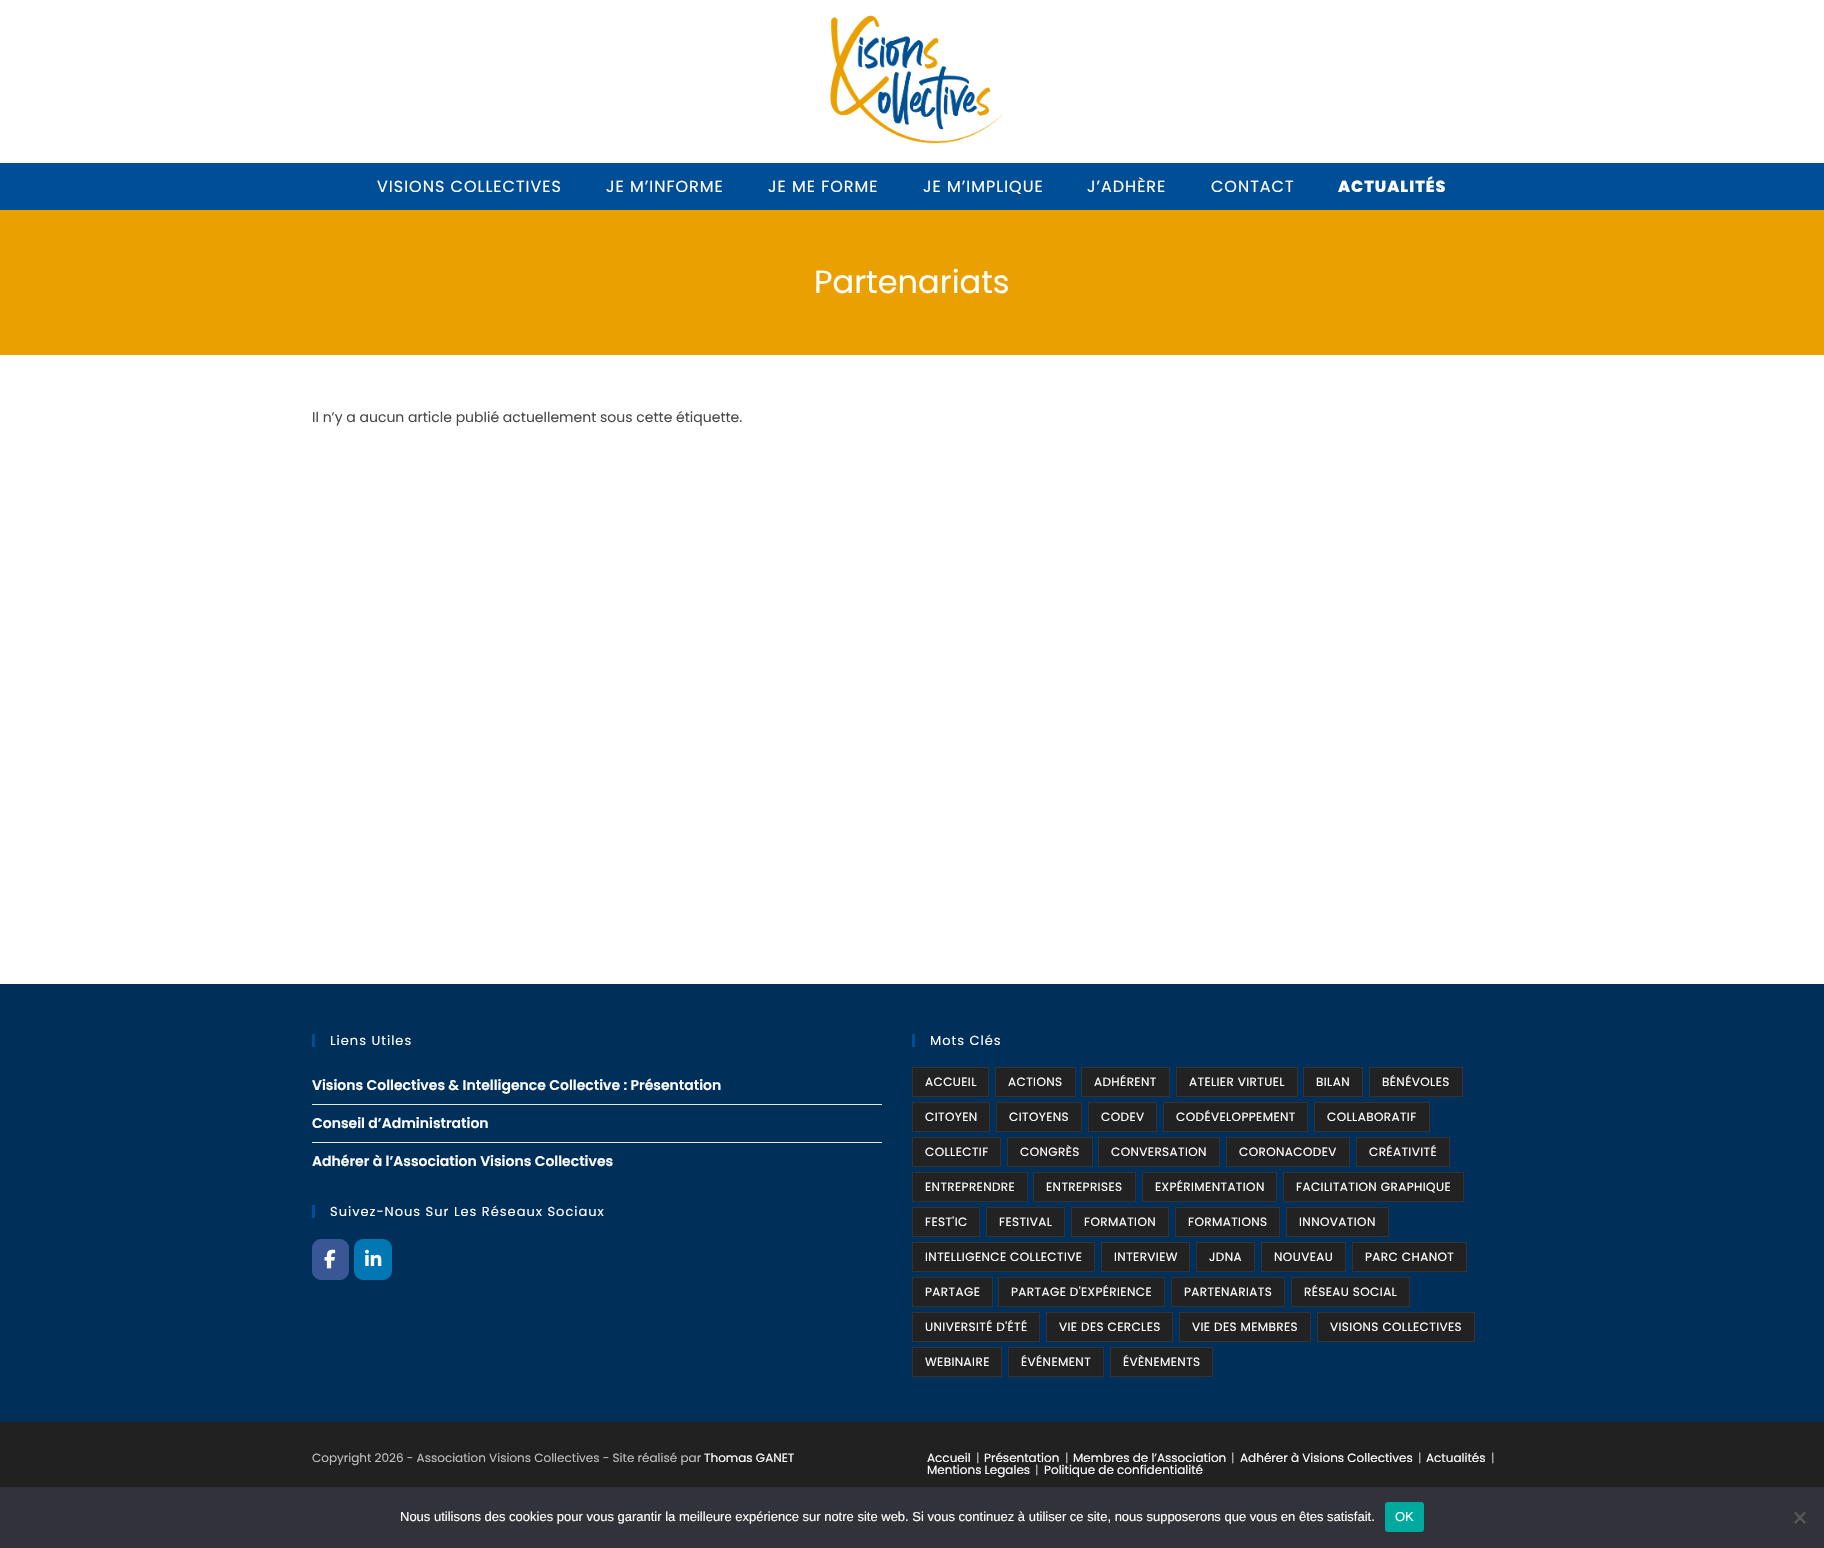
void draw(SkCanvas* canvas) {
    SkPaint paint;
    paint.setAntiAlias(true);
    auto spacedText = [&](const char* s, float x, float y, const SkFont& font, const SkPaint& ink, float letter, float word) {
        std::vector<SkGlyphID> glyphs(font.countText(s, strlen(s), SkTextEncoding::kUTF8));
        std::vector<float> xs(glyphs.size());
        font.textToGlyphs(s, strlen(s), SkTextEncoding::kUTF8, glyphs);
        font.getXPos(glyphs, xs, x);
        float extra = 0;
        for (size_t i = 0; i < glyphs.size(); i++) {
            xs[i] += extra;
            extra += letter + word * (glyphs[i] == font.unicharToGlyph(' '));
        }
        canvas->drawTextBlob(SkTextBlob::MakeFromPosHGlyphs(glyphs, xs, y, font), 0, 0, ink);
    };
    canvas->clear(0xFFFFFFFF);
    canvas->drawImageRect(SkImages::DeferredFromEncodedData(SkData::MakeFromFileName("img1.png")), SkRect::MakeXYWH(830, 15, 174, 129), SkSamplingOptions());
    paint.setColor(0xFF004E95);
    canvas->drawRect(SkRect::MakeXYWH(0, 163, 1824, 47), paint);
    SkFont font1(fontMgr->matchFamilyStyle("Poppins", SkFontStyle::Normal()), 16);
    font1.setSubpixel(true);
    paint.setColor(0xFFFFFFFF);
    spacedText("VISIONS COLLECTIVES", 377, 192, font1, paint, 1, 0);
    spacedText("JE M’INFORME", 606, 192, font1, paint, 1, 0);
    spacedText("JE ME FORME", 768, 192, font1, paint, 1, 0);
    spacedText("JE M’IMPLIQUE", 923, 192, font1, paint, 1, 0);
    spacedText("J’ADHÈRE", 1087, 192, font1, paint, 1, 0);
    spacedText("CONTACT", 1211, 192, font1, paint, 1, 0);
    SkFont font2(fontMgr->matchFamilyStyle("Poppins", SkFontStyle(800, SkFontStyle::kNormal_Width, SkFontStyle::kUpright_Slant)), 16);
    font2.setSubpixel(true);
    spacedText("ACTUALITÉS", 1338, 192, font2, paint, 1, 0);
    paint.setColor(0xFFEAA000);
    canvas->drawRect(SkRect::MakeXYWH(0, 210, 1824, 145), paint);
    SkFont font3(fontMgr->matchFamilyStyle("Poppins", SkFontStyle::Normal()), 32);
    font3.setSubpixel(true);
    paint.setColor(0xFFFFFFFF);
    canvas->drawString("Partenariats", 814, 293, font3, paint);
    SkFont font4(fontMgr->matchFamilyStyle("Poppins", SkFontStyle::Normal()), 14);
    font4.setSubpixel(true);
    paint.setColor(0xFF4A4A4A);
    canvas->drawString("Il n’y a aucun article publié actuellement sous cette étiquette.", 312, 422, font4, paint);
    paint.setColor(0xFF002F5A);
    canvas->drawRect(SkRect::MakeXYWH(0, 984, 1824, 438), paint);
    paint.setColor(0xFF004E95);
    canvas->drawRect(SkRect::MakeXYWH(312, 1034, 3, 13), paint);
    SkFont font5(fontMgr->matchFamilyStyle("Poppins", SkFontStyle::Normal()), 13);
    font5.setSubpixel(true);
    paint.setColor(0xFFFFFFFF);
    spacedText("Liens Utiles", 330, 1045, font5, paint, 1, 0);
    paint.setColor(0xFFE9E9E9);
    canvas->drawRect(SkRect::MakeXYWH(312, 1104, 570, 1), paint);
    SkFont font6(fontMgr->matchFamilyStyle("Poppins", SkFontStyle(600, SkFontStyle::kNormal_Width, SkFontStyle::kUpright_Slant)), 14);
    font6.setSubpixel(true);
    paint.setColor(0xFFFFFFFF);
    canvas->drawString("Visions Collectives & Intelligence Collective : Présentation", 312, 1090, font6, paint);
    paint.setColor(0xFFE9E9E9);
    canvas->drawRect(SkRect::MakeXYWH(312, 1142, 570, 1), paint);
    paint.setColor(0xFFFFFFFF);
    canvas->drawString("Conseil d’Administration", 312, 1128, font6, paint);
    canvas->drawString("Adhérer à l’Association Visions Collectives", 312, 1166, font6, paint);
    paint.setColor(0xFF004E95);
    canvas->drawRect(SkRect::MakeXYWH(312, 1205, 3, 13), paint);
    paint.setColor(0xFFFFFFFF);
    spacedText("Suivez-Nous Sur Les Réseaux Sociaux", 330, 1216, font5, paint, 1, 0);
    paint.setColor(0xFF3A5795);
    canvas->drawRoundRect(SkRect::MakeXYWH(312.5f, 1239.5f, 36, 40), 8.5f, 8.5f, paint);
    paint.setStyle(SkPaint::kStroke_Style);
    paint.setStrokeWidth(1);
    canvas->drawRoundRect(SkRect::MakeXYWH(312.5f, 1239.5f, 36, 40), 8.5f, 8.5f, paint);
    canvas->drawImageRect(SkImages::DeferredFromEncodedData(SkData::MakeFromFileName("img2.png")), SkRect::MakeXYWH(324, 1249, 12, 20), SkSamplingOptions());
    paint.setStyle(SkPaint::kFill_Style);
    paint.setColor(0xFF0177B4);
    canvas->drawRoundRect(SkRect::MakeXYWH(354.5f, 1239.5f, 37, 40), 8.5f, 8.5f, paint);
    paint.setStyle(SkPaint::kStroke_Style);
    canvas->drawRoundRect(SkRect::MakeXYWH(354.5f, 1239.5f, 37, 40), 8.5f, 8.5f, paint);
    canvas->drawImageRect(SkImages::DeferredFromEncodedData(SkData::MakeFromFileName("img3.png")), SkRect::MakeXYWH(365, 1249, 17, 17), SkSamplingOptions());
    paint.setStyle(SkPaint::kFill_Style);
    paint.setColor(0xFF004E95);
    canvas->drawRect(SkRect::MakeXYWH(912, 1034, 3, 13), paint);
    paint.setColor(0xFFFFFFFF);
    spacedText("Mots Clés", 930, 1045, font5, paint, 1, 0);
    paint.setColor(0xFF222222);
    canvas->drawRect(SkRect::MakeXYWH(912.5f, 1067.5f, 76, 29), paint);
    paint.setStyle(SkPaint::kStroke_Style);
    paint.setColor(0xFF333333);
    canvas->drawRect(SkRect::MakeXYWH(912.5f, 1067.5f, 76, 29), paint);
    SkFont font7(fontMgr->matchFamilyStyle("Poppins", SkFontStyle::Normal()), 12);
    font7.setSubpixel(true);
    paint.setStyle(SkPaint::kFill_Style);
    paint.setColor(0xFFFFFFFF);
    spacedText("ACCUEIL", 925, 1086, font7, paint, 0.4f, 0);
    paint.setColor(0xFF222222);
    canvas->drawRect(SkRect::MakeXYWH(995.5f, 1067.5f, 80, 29), paint);
    paint.setStyle(SkPaint::kStroke_Style);
    paint.setColor(0xFF333333);
    canvas->drawRect(SkRect::MakeXYWH(995.5f, 1067.5f, 80, 29), paint);
    paint.setStyle(SkPaint::kFill_Style);
    paint.setColor(0xFFFFFFFF);
    spacedText("ACTIONS", 1008, 1086, font7, paint, 0.4f, 0);
    paint.setColor(0xFF222222);
    canvas->drawRect(SkRect::MakeXYWH(1081.5f, 1067.5f, 88, 29), paint);
    paint.setStyle(SkPaint::kStroke_Style);
    paint.setColor(0xFF333333);
    canvas->drawRect(SkRect::MakeXYWH(1081.5f, 1067.5f, 88, 29), paint);
    paint.setStyle(SkPaint::kFill_Style);
    paint.setColor(0xFFFFFFFF);
    spacedText("ADHÉRENT", 1094, 1086, font7, paint, 0.4f, 0);
    paint.setColor(0xFF222222);
    canvas->drawRect(SkRect::MakeXYWH(1176.5f, 1067.5f, 121, 29), paint);
    paint.setStyle(SkPaint::kStroke_Style);
    paint.setColor(0xFF333333);
    canvas->drawRect(SkRect::MakeXYWH(1176.5f, 1067.5f, 121, 29), paint);
    paint.setStyle(SkPaint::kFill_Style);
    paint.setColor(0xFFFFFFFF);
    spacedText("ATELIER VIRTUEL", 1189, 1086, font7, paint, 0.4f, 0);
    paint.setColor(0xFF222222);
    canvas->drawRect(SkRect::MakeXYWH(1303.5f, 1067.5f, 59, 29), paint);
    paint.setStyle(SkPaint::kStroke_Style);
    paint.setColor(0xFF333333);
    canvas->drawRect(SkRect::MakeXYWH(1303.5f, 1067.5f, 59, 29), paint);
    paint.setStyle(SkPaint::kFill_Style);
    paint.setColor(0xFFFFFFFF);
    spacedText("BILAN", 1316, 1086, font7, paint, 0.4f, 0);
    paint.setColor(0xFF222222);
    canvas->drawRect(SkRect::MakeXYWH(1369.5f, 1067.5f, 93, 29), paint);
    paint.setStyle(SkPaint::kStroke_Style);
    paint.setColor(0xFF333333);
    canvas->drawRect(SkRect::MakeXYWH(1369.5f, 1067.5f, 93, 29), paint);
    paint.setStyle(SkPaint::kFill_Style);
    paint.setColor(0xFFFFFFFF);
    spacedText("BÉNÉVOLES", 1382, 1086, font7, paint, 0.4f, 0);
    paint.setColor(0xFF222222);
    canvas->drawRect(SkRect::MakeXYWH(912.5f, 1102.5f, 77, 29), paint);
    paint.setStyle(SkPaint::kStroke_Style);
    paint.setColor(0xFF333333);
    canvas->drawRect(SkRect::MakeXYWH(912.5f, 1102.5f, 77, 29), paint);
    paint.setStyle(SkPaint::kFill_Style);
    paint.setColor(0xFFFFFFFF);
    spacedText("CITOYEN", 925, 1121, font7, paint, 0.4f, 0);
    paint.setColor(0xFF222222);
    canvas->drawRect(SkRect::MakeXYWH(996.5f, 1102.5f, 85, 29), paint);
    paint.setStyle(SkPaint::kStroke_Style);
    paint.setColor(0xFF333333);
    canvas->drawRect(SkRect::MakeXYWH(996.5f, 1102.5f, 85, 29), paint);
    paint.setStyle(SkPaint::kFill_Style);
    paint.setColor(0xFFFFFFFF);
    spacedText("CITOYENS", 1009, 1121, font7, paint, 0.4f, 0);
    paint.setColor(0xFF222222);
    canvas->drawRect(SkRect::MakeXYWH(1088.5f, 1102.5f, 68, 29), paint);
    paint.setStyle(SkPaint::kStroke_Style);
    paint.setColor(0xFF333333);
    canvas->drawRect(SkRect::MakeXYWH(1088.5f, 1102.5f, 68, 29), paint);
    paint.setStyle(SkPaint::kFill_Style);
    paint.setColor(0xFFFFFFFF);
    spacedText("CODEV", 1101, 1121, font7, paint, 0.4f, 0);
    paint.setColor(0xFF222222);
    canvas->drawRect(SkRect::MakeXYWH(1163.5f, 1102.5f, 144, 29), paint);
    paint.setStyle(SkPaint::kStroke_Style);
    paint.setColor(0xFF333333);
    canvas->drawRect(SkRect::MakeXYWH(1163.5f, 1102.5f, 144, 29), paint);
    paint.setStyle(SkPaint::kFill_Style);
    paint.setColor(0xFFFFFFFF);
    spacedText("CODÉVELOPPEMENT", 1176, 1121, font7, paint, 0.4f, 0);
    paint.setColor(0xFF222222);
    canvas->drawRect(SkRect::MakeXYWH(1314.5f, 1102.5f, 115, 29), paint);
    paint.setStyle(SkPaint::kStroke_Style);
    paint.setColor(0xFF333333);
    canvas->drawRect(SkRect::MakeXYWH(1314.5f, 1102.5f, 115, 29), paint);
    paint.setStyle(SkPaint::kFill_Style);
    paint.setColor(0xFFFFFFFF);
    spacedText("COLLABORATIF", 1327, 1121, font7, paint, 0.4f, 0);
    paint.setColor(0xFF222222);
    canvas->drawRect(SkRect::MakeXYWH(912.5f, 1137.5f, 88, 29), paint);
    paint.setStyle(SkPaint::kStroke_Style);
    paint.setColor(0xFF333333);
    canvas->drawRect(SkRect::MakeXYWH(912.5f, 1137.5f, 88, 29), paint);
    paint.setStyle(SkPaint::kFill_Style);
    paint.setColor(0xFFFFFFFF);
    spacedText("COLLECTIF", 925, 1156, font7, paint, 0.4f, 0);
    paint.setColor(0xFF222222);
    canvas->drawRect(SkRect::MakeXYWH(1007.5f, 1137.5f, 85, 29), paint);
    paint.setStyle(SkPaint::kStroke_Style);
    paint.setColor(0xFF333333);
    canvas->drawRect(SkRect::MakeXYWH(1007.5f, 1137.5f, 85, 29), paint);
    paint.setStyle(SkPaint::kFill_Style);
    paint.setColor(0xFFFFFFFF);
    spacedText("CONGRÈS", 1020, 1156, font7, paint, 0.4f, 0);
    paint.setColor(0xFF222222);
    canvas->drawRect(SkRect::MakeXYWH(1098.5f, 1137.5f, 121, 29), paint);
    paint.setStyle(SkPaint::kStroke_Style);
    paint.setColor(0xFF333333);
    canvas->drawRect(SkRect::MakeXYWH(1098.5f, 1137.5f, 121, 29), paint);
    paint.setStyle(SkPaint::kFill_Style);
    paint.setColor(0xFFFFFFFF);
    spacedText("CONVERSATION", 1111, 1156, font7, paint, 0.4f, 0);
    paint.setColor(0xFF222222);
    canvas->drawRect(SkRect::MakeXYWH(1226.5f, 1137.5f, 123, 29), paint);
    paint.setStyle(SkPaint::kStroke_Style);
    paint.setColor(0xFF333333);
    canvas->drawRect(SkRect::MakeXYWH(1226.5f, 1137.5f, 123, 29), paint);
    paint.setStyle(SkPaint::kFill_Style);
    paint.setColor(0xFFFFFFFF);
    spacedText("CORONACODEV", 1239, 1156, font7, paint, 0.4f, 0);
    paint.setColor(0xFF222222);
    canvas->drawRect(SkRect::MakeXYWH(1356.5f, 1137.5f, 93, 29), paint);
    paint.setStyle(SkPaint::kStroke_Style);
    paint.setColor(0xFF333333);
    canvas->drawRect(SkRect::MakeXYWH(1356.5f, 1137.5f, 93, 29), paint);
    paint.setStyle(SkPaint::kFill_Style);
    paint.setColor(0xFFFFFFFF);
    spacedText("CRÉATIVITÉ", 1369, 1156, font7, paint, 0.4f, 0);
    paint.setColor(0xFF222222);
    canvas->drawRect(SkRect::MakeXYWH(912.5f, 1172.5f, 115, 29), paint);
    paint.setStyle(SkPaint::kStroke_Style);
    paint.setColor(0xFF333333);
    canvas->drawRect(SkRect::MakeXYWH(912.5f, 1172.5f, 115, 29), paint);
    paint.setStyle(SkPaint::kFill_Style);
    paint.setColor(0xFFFFFFFF);
    spacedText("ENTREPRENDRE", 925, 1191, font7, paint, 0.4f, 0);
    paint.setColor(0xFF222222);
    canvas->drawRect(SkRect::MakeXYWH(1033.5f, 1172.5f, 102, 29), paint);
    paint.setStyle(SkPaint::kStroke_Style);
    paint.setColor(0xFF333333);
    canvas->drawRect(SkRect::MakeXYWH(1033.5f, 1172.5f, 102, 29), paint);
    paint.setStyle(SkPaint::kFill_Style);
    paint.setColor(0xFFFFFFFF);
    spacedText("ENTREPRISES", 1046, 1191, font7, paint, 0.4f, 0);
    paint.setColor(0xFF222222);
    canvas->drawRect(SkRect::MakeXYWH(1142.5f, 1172.5f, 134, 29), paint);
    paint.setStyle(SkPaint::kStroke_Style);
    paint.setColor(0xFF333333);
    canvas->drawRect(SkRect::MakeXYWH(1142.5f, 1172.5f, 134, 29), paint);
    paint.setStyle(SkPaint::kFill_Style);
    paint.setColor(0xFFFFFFFF);
    spacedText("EXPÉRIMENTATION", 1155, 1191, font7, paint, 0.4f, 0);
    paint.setColor(0xFF222222);
    canvas->drawRect(SkRect::MakeXYWH(1283.5f, 1172.5f, 180, 29), paint);
    paint.setStyle(SkPaint::kStroke_Style);
    paint.setColor(0xFF333333);
    canvas->drawRect(SkRect::MakeXYWH(1283.5f, 1172.5f, 180, 29), paint);
    paint.setStyle(SkPaint::kFill_Style);
    paint.setColor(0xFFFFFFFF);
    spacedText("FACILITATION GRAPHIQUE", 1296, 1191, font7, paint, 0.4f, 0);
    paint.setColor(0xFF222222);
    canvas->drawRect(SkRect::MakeXYWH(912.5f, 1207.5f, 67, 29), paint);
    paint.setStyle(SkPaint::kStroke_Style);
    paint.setColor(0xFF333333);
    canvas->drawRect(SkRect::MakeXYWH(912.5f, 1207.5f, 67, 29), paint);
    paint.setStyle(SkPaint::kFill_Style);
    paint.setColor(0xFFFFFFFF);
    spacedText("FEST'IC", 925, 1226, font7, paint, 0.4f, 0);
    paint.setColor(0xFF222222);
    canvas->drawRect(SkRect::MakeXYWH(986.5f, 1207.5f, 78, 29), paint);
    paint.setStyle(SkPaint::kStroke_Style);
    paint.setColor(0xFF333333);
    canvas->drawRect(SkRect::MakeXYWH(986.5f, 1207.5f, 78, 29), paint);
    paint.setStyle(SkPaint::kFill_Style);
    paint.setColor(0xFFFFFFFF);
    spacedText("FESTIVAL", 999, 1226, font7, paint, 0.4f, 0);
    paint.setColor(0xFF222222);
    canvas->drawRect(SkRect::MakeXYWH(1071.5f, 1207.5f, 97, 29), paint);
    paint.setStyle(SkPaint::kStroke_Style);
    paint.setColor(0xFF333333);
    canvas->drawRect(SkRect::MakeXYWH(1071.5f, 1207.5f, 97, 29), paint);
    paint.setStyle(SkPaint::kFill_Style);
    paint.setColor(0xFFFFFFFF);
    spacedText("FORMATION", 1084, 1226, font7, paint, 0.4f, 0);
    paint.setColor(0xFF222222);
    canvas->drawRect(SkRect::MakeXYWH(1175.5f, 1207.5f, 104, 29), paint);
    paint.setStyle(SkPaint::kStroke_Style);
    paint.setColor(0xFF333333);
    canvas->drawRect(SkRect::MakeXYWH(1175.5f, 1207.5f, 104, 29), paint);
    paint.setStyle(SkPaint::kFill_Style);
    paint.setColor(0xFFFFFFFF);
    spacedText("FORMATIONS", 1188, 1226, font7, paint, 0.4f, 0);
    paint.setColor(0xFF222222);
    canvas->drawRect(SkRect::MakeXYWH(1286.5f, 1207.5f, 102, 29), paint);
    paint.setStyle(SkPaint::kStroke_Style);
    paint.setColor(0xFF333333);
    canvas->drawRect(SkRect::MakeXYWH(1286.5f, 1207.5f, 102, 29), paint);
    paint.setStyle(SkPaint::kFill_Style);
    paint.setColor(0xFFFFFFFF);
    spacedText("INNOVATION", 1299, 1226, font7, paint, 0.4f, 0);
    paint.setColor(0xFF222222);
    canvas->drawRect(SkRect::MakeXYWH(912.5f, 1242.5f, 182, 29), paint);
    paint.setStyle(SkPaint::kStroke_Style);
    paint.setColor(0xFF333333);
    canvas->drawRect(SkRect::MakeXYWH(912.5f, 1242.5f, 182, 29), paint);
    paint.setStyle(SkPaint::kFill_Style);
    paint.setColor(0xFFFFFFFF);
    spacedText("INTELLIGENCE COLLECTIVE", 925, 1261, font7, paint, 0.4f, 0);
    paint.setColor(0xFF222222);
    canvas->drawRect(SkRect::MakeXYWH(1101.5f, 1242.5f, 88, 29), paint);
    paint.setStyle(SkPaint::kStroke_Style);
    paint.setColor(0xFF333333);
    canvas->drawRect(SkRect::MakeXYWH(1101.5f, 1242.5f, 88, 29), paint);
    paint.setStyle(SkPaint::kFill_Style);
    paint.setColor(0xFFFFFFFF);
    spacedText("INTERVIEW", 1114, 1261, font7, paint, 0.4f, 0);
    paint.setColor(0xFF222222);
    canvas->drawRect(SkRect::MakeXYWH(1196.5f, 1242.5f, 58, 29), paint);
    paint.setStyle(SkPaint::kStroke_Style);
    paint.setColor(0xFF333333);
    canvas->drawRect(SkRect::MakeXYWH(1196.5f, 1242.5f, 58, 29), paint);
    paint.setStyle(SkPaint::kFill_Style);
    paint.setColor(0xFFFFFFFF);
    spacedText("JDNA", 1209, 1261, font7, paint, 0.4f, 0);
    paint.setColor(0xFF222222);
    canvas->drawRect(SkRect::MakeXYWH(1261.5f, 1242.5f, 84, 29), paint);
    paint.setStyle(SkPaint::kStroke_Style);
    paint.setColor(0xFF333333);
    canvas->drawRect(SkRect::MakeXYWH(1261.5f, 1242.5f, 84, 29), paint);
    paint.setStyle(SkPaint::kFill_Style);
    paint.setColor(0xFFFFFFFF);
    spacedText("NOUVEAU", 1274, 1261, font7, paint, 0.4f, 0);
    paint.setColor(0xFF222222);
    canvas->drawRect(SkRect::MakeXYWH(1352.5f, 1242.5f, 114, 29), paint);
    paint.setStyle(SkPaint::kStroke_Style);
    paint.setColor(0xFF333333);
    canvas->drawRect(SkRect::MakeXYWH(1352.5f, 1242.5f, 114, 29), paint);
    paint.setStyle(SkPaint::kFill_Style);
    paint.setColor(0xFFFFFFFF);
    spacedText("PARC CHANOT", 1365, 1261, font7, paint, 0.4f, 0);
    paint.setColor(0xFF222222);
    canvas->drawRect(SkRect::MakeXYWH(912.5f, 1277.5f, 80, 29), paint);
    paint.setStyle(SkPaint::kStroke_Style);
    paint.setColor(0xFF333333);
    canvas->drawRect(SkRect::MakeXYWH(912.5f, 1277.5f, 80, 29), paint);
    paint.setStyle(SkPaint::kFill_Style);
    paint.setColor(0xFFFFFFFF);
    spacedText("PARTAGE", 925, 1296, font7, paint, 0.4f, 0);
    paint.setColor(0xFF222222);
    canvas->drawRect(SkRect::MakeXYWH(998.5f, 1277.5f, 166, 29), paint);
    paint.setStyle(SkPaint::kStroke_Style);
    paint.setColor(0xFF333333);
    canvas->drawRect(SkRect::MakeXYWH(998.5f, 1277.5f, 166, 29), paint);
    paint.setStyle(SkPaint::kFill_Style);
    paint.setColor(0xFFFFFFFF);
    spacedText("PARTAGE D'EXPÉRIENCE", 1011, 1296, font7, paint, 0.4f, 0);
    paint.setColor(0xFF222222);
    canvas->drawRect(SkRect::MakeXYWH(1171.5f, 1277.5f, 113, 29), paint);
    paint.setStyle(SkPaint::kStroke_Style);
    paint.setColor(0xFF333333);
    canvas->drawRect(SkRect::MakeXYWH(1171.5f, 1277.5f, 113, 29), paint);
    paint.setStyle(SkPaint::kFill_Style);
    paint.setColor(0xFFFFFFFF);
    spacedText("PARTENARIATS", 1184, 1296, font7, paint, 0.4f, 0);
    paint.setColor(0xFF222222);
    canvas->drawRect(SkRect::MakeXYWH(1291.5f, 1277.5f, 118, 29), paint);
    paint.setStyle(SkPaint::kStroke_Style);
    paint.setColor(0xFF333333);
    canvas->drawRect(SkRect::MakeXYWH(1291.5f, 1277.5f, 118, 29), paint);
    paint.setStyle(SkPaint::kFill_Style);
    paint.setColor(0xFFFFFFFF);
    spacedText("RÉSEAU SOCIAL", 1304, 1296, font7, paint, 0.4f, 0);
    paint.setColor(0xFF222222);
    canvas->drawRect(SkRect::MakeXYWH(912.5f, 1312.5f, 127, 29), paint);
    paint.setStyle(SkPaint::kStroke_Style);
    paint.setColor(0xFF333333);
    canvas->drawRect(SkRect::MakeXYWH(912.5f, 1312.5f, 127, 29), paint);
    paint.setStyle(SkPaint::kFill_Style);
    paint.setColor(0xFFFFFFFF);
    spacedText("UNIVERSITÉ D'ÉTÉ", 925, 1331, font7, paint, 0.4f, 0);
    paint.setColor(0xFF222222);
    canvas->drawRect(SkRect::MakeXYWH(1046.5f, 1312.5f, 126, 29), paint);
    paint.setStyle(SkPaint::kStroke_Style);
    paint.setColor(0xFF333333);
    canvas->drawRect(SkRect::MakeXYWH(1046.5f, 1312.5f, 126, 29), paint);
    paint.setStyle(SkPaint::kFill_Style);
    paint.setColor(0xFFFFFFFF);
    spacedText("VIE DES CERCLES", 1059, 1331, font7, paint, 0.4f, 0);
    paint.setColor(0xFF222222);
    canvas->drawRect(SkRect::MakeXYWH(1179.5f, 1312.5f, 131, 29), paint);
    paint.setStyle(SkPaint::kStroke_Style);
    paint.setColor(0xFF333333);
    canvas->drawRect(SkRect::MakeXYWH(1179.5f, 1312.5f, 131, 29), paint);
    paint.setStyle(SkPaint::kFill_Style);
    paint.setColor(0xFFFFFFFF);
    spacedText("VIE DES MEMBRES", 1192, 1331, font7, paint, 0.4f, 0);
    paint.setColor(0xFF222222);
    canvas->drawRect(SkRect::MakeXYWH(1317.5f, 1312.5f, 157, 29), paint);
    paint.setStyle(SkPaint::kStroke_Style);
    paint.setColor(0xFF333333);
    canvas->drawRect(SkRect::MakeXYWH(1317.5f, 1312.5f, 157, 29), paint);
    paint.setStyle(SkPaint::kFill_Style);
    paint.setColor(0xFFFFFFFF);
    spacedText("VISIONS COLLECTIVES", 1330, 1331, font7, paint, 0.4f, 0);
    paint.setColor(0xFF222222);
    canvas->drawRect(SkRect::MakeXYWH(912.5f, 1347.5f, 89, 29), paint);
    paint.setStyle(SkPaint::kStroke_Style);
    paint.setColor(0xFF333333);
    canvas->drawRect(SkRect::MakeXYWH(912.5f, 1347.5f, 89, 29), paint);
    paint.setStyle(SkPaint::kFill_Style);
    paint.setColor(0xFFFFFFFF);
    spacedText("WEBINAIRE", 925, 1366, font7, paint, 0.4f, 0);
    paint.setColor(0xFF222222);
    canvas->drawRect(SkRect::MakeXYWH(1008.5f, 1347.5f, 95, 29), paint);
    paint.setStyle(SkPaint::kStroke_Style);
    paint.setColor(0xFF333333);
    canvas->drawRect(SkRect::MakeXYWH(1008.5f, 1347.5f, 95, 29), paint);
    paint.setStyle(SkPaint::kFill_Style);
    paint.setColor(0xFFFFFFFF);
    spacedText("ÉVÉNEMENT", 1021, 1366, font7, paint, 0.4f, 0);
    paint.setColor(0xFF222222);
    canvas->drawRect(SkRect::MakeXYWH(1110.5f, 1347.5f, 102, 29), paint);
    paint.setStyle(SkPaint::kStroke_Style);
    paint.setColor(0xFF333333);
    canvas->drawRect(SkRect::MakeXYWH(1110.5f, 1347.5f, 102, 29), paint);
    paint.setStyle(SkPaint::kFill_Style);
    paint.setColor(0xFFFFFFFF);
    spacedText("ÉVÈNEMENTS", 1123, 1366, font7, paint, 0.4f, 0);
    paint.setColor(0xFF212121);
    canvas->drawRect(SkRect::MakeXYWH(0, 1422, 1824, 65), paint);
    paint.setColor(0xFFBFBFBF);
    canvas->drawString("Copyright 2026 - Association Visions Collectives - Site réalisé par", 312, 1462, font7, paint);
    paint.setColor(0xFFFFFFFF);
    canvas->drawString("Thomas GANET", 704, 1462, font7, paint);
    canvas->drawString("Accueil", 927, 1462, font7, paint);
    paint.setColor(0xFFBFBFBF);
    canvas->drawString("|", 976, 1462, font7, paint);
    paint.setColor(0xFFFFFFFF);
    canvas->drawString("Présentation", 984, 1462, font7, paint);
    paint.setColor(0xFFBFBFBF);
    canvas->drawString("|", 1065, 1462, font7, paint);
    paint.setColor(0xFFFFFFFF);
    canvas->drawString("Membres de l’Association", 1073, 1462, font7, paint);
    paint.setColor(0xFFBFBFBF);
    canvas->drawString("|", 1231, 1462, font7, paint);
    paint.setColor(0xFFFFFFFF);
    canvas->drawString("Adhérer à Visions Collectives", 1240, 1462, font7, paint);
    paint.setColor(0xFFBFBFBF);
    canvas->drawString("|", 1418, 1462, font7, paint);
    paint.setColor(0xFFFFFFFF);
    canvas->drawString("Actualités", 1426, 1462, font7, paint);
    paint.setColor(0xFFBFBFBF);
    canvas->drawString("|", 1491, 1462, font7, paint);
    paint.setColor(0xFFFFFFFF);
    canvas->drawString("Mentions Legales", 927, 1474, font7, paint);
    paint.setColor(0xFFBFBFBF);
    canvas->drawString("|", 1035, 1474, font7, paint);
    paint.setColor(0xFFFFFFFF);
    canvas->drawString("Politique de confidentialité", 1044, 1474, font7, paint);
    paint.setColor(0xFF32323A);
    canvas->drawRect(SkRect::MakeXYWH(0, 1487, 1824, 61), paint);
    SkFont font8(fontMgr->matchFamilyStyle("Liberation Sans", SkFontStyle::Normal()), 13);
    font8.setSubpixel(true);
    paint.setColor(0xFFFFFFFF);
    canvas->drawString("Nous utilisons des cookies pour vous garantir la meilleure expérience sur notre site web. Si vous continuez à utiliser ce site, nous supposerons que vous en êtes satisfait.", 400, 1521, font8, paint);
    paint.setColor(0xFF00A99D);
    canvas->drawRoundRect(SkRect::MakeXYWH(1385, 1502, 39, 30), 3, 3, paint);
    paint.setColor(0xFFFFFFFF);
    canvas->drawString("OK", 1395, 1521, font8, paint);
    paint.setColor(0xFF59595D);
    canvas->drawPath(SkPathBuilder().moveTo(1804.5f, 1511.5f).lineTo(1806, 1513).lineTo(1795.5f, 1524).lineTo(1794, 1522.5f).close().detach(), paint);
    canvas->drawPath(SkPathBuilder().moveTo(1794, 1513).lineTo(1795.5f, 1511.5f).lineTo(1806, 1522.5f).lineTo(1804.5f, 1524).close().detach(), paint);
}
